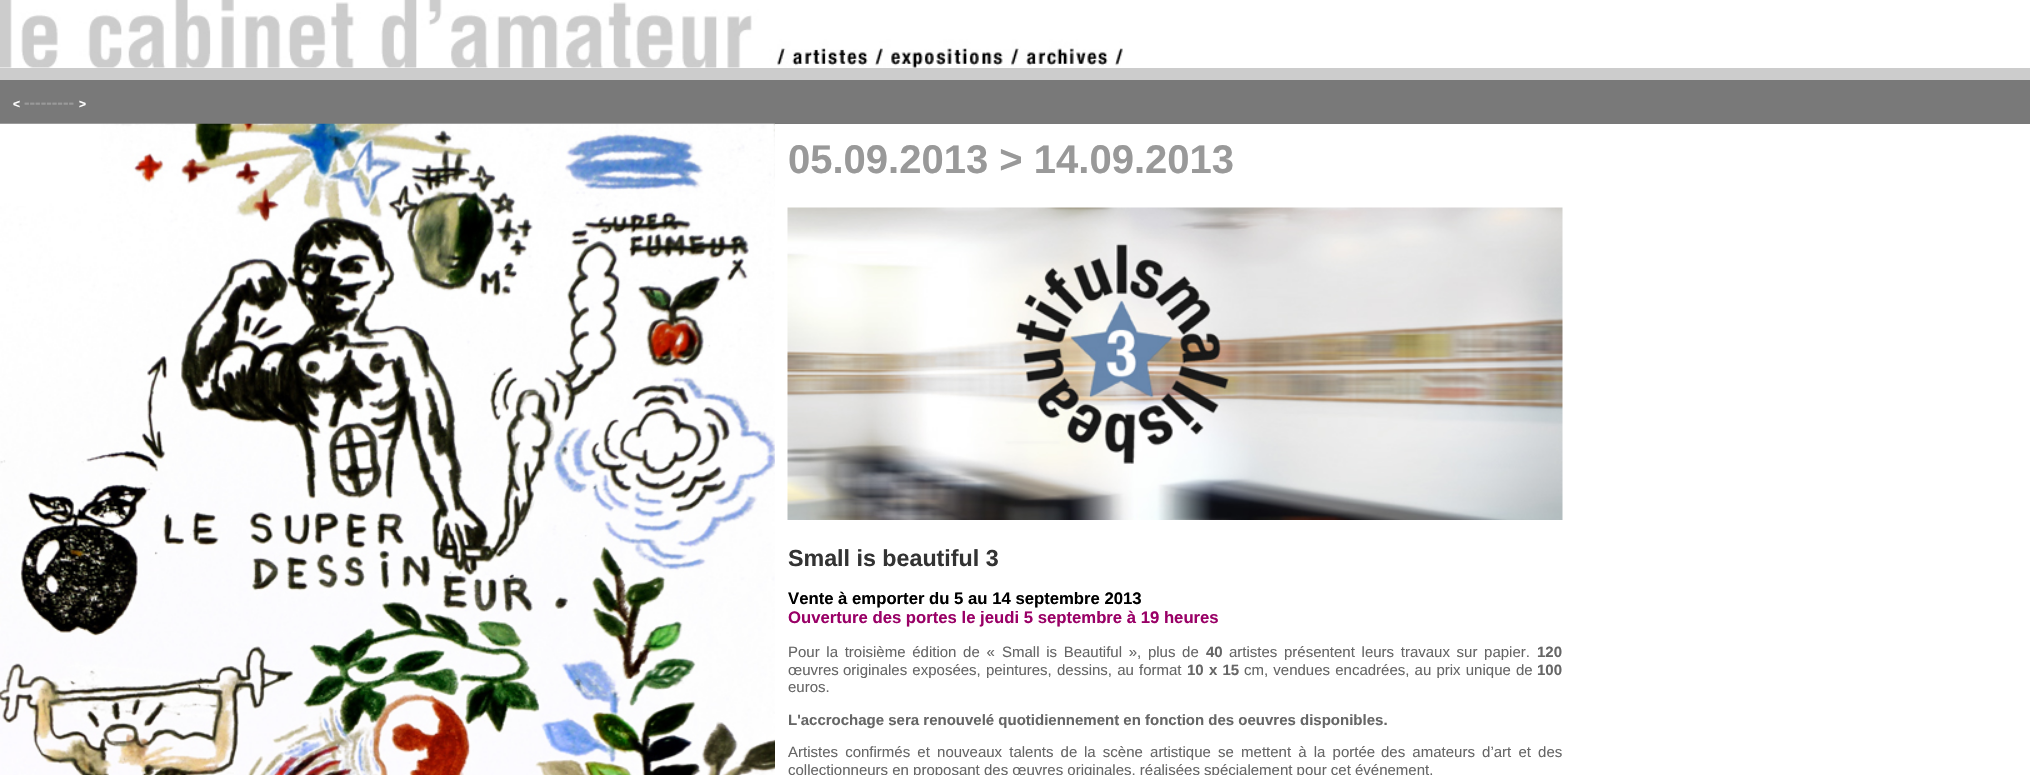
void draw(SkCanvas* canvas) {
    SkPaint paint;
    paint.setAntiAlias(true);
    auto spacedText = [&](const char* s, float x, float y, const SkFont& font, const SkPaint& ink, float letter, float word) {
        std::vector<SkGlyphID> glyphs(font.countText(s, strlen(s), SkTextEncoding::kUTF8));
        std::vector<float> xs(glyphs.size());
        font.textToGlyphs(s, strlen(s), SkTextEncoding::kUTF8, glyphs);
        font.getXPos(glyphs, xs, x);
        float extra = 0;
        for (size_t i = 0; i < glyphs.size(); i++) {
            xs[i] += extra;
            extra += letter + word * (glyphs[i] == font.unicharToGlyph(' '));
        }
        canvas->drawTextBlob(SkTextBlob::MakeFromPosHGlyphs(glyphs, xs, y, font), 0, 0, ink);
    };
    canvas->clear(0xFFCCCCCC);
    paint.setColor(0xFFFFFFFF);
    canvas->drawRect(SkRect::MakeXYWH(0, 0, 2030, 68), paint);
    canvas->drawImageRect(SkImages::DeferredFromEncodedData(SkData::MakeFromFileName("img1.png")), SkRect::MakeXYWH(0, 0, 1123, 68), SkSamplingOptions());
    paint.setColor(0xFF797979);
    canvas->drawRect(SkRect::MakeXYWH(0, 80, 2030, 44), paint);
    SkFont font1(fontMgr->matchFamilyStyle("Liberation Sans", SkFontStyle::Bold()), 12);
    font1.setSubpixel(true);
    paint.setColor(0xFFFFFFFF);
    canvas->drawString("<", 13, 108, font1, paint);
    SkFont font2(fontMgr->matchFamilyStyle("Liberation Sans", SkFontStyle::Bold()), 16.7f);
    font2.setSubpixel(true);
    paint.setColor(0xFF999999);
    canvas->drawString("---------", 24, 108, font2, paint);
    paint.setColor(0xFFFFFFFF);
    canvas->drawString(">", 79, 108, font1, paint);
    canvas->drawImageRect(SkImages::DeferredFromEncodedData(SkData::MakeFromFileName("img2.png")), SkRect::MakeXYWH(0, 123, 775, 652), SkSamplingOptions());
    canvas->drawRect(SkRect::MakeXYWH(775, 124, 1255, 651), paint);
    SkFont font3(fontMgr->matchFamilyStyle("Liberation Sans", SkFontStyle::Bold()), 40);
    font3.setSubpixel(true);
    paint.setColor(0xFF999999);
    canvas->drawString("05.09.2013 > 14.09.2013", 788, 173, font3, paint);
    canvas->drawImageRect(SkImages::DeferredFromEncodedData(SkData::MakeFromFileName("img3.png")), SkRect::MakeXYWH(787, 207, 776, 313), SkSamplingOptions());
    SkFont font4(fontMgr->matchFamilyStyle("Liberation Sans", SkFontStyle::Bold()), 23.25f);
    font4.setSubpixel(true);
    paint.setColor(0xFF333333);
    canvas->drawString("Small is beautiful 3", 788, 566, font4, paint);
    paint.setColor(0xFF000000);
    canvas->drawString("Vente à emporter du 5 au 14 septembre 2013", 788, 604, font2, paint);
    paint.setColor(0xFF990066);
    canvas->drawString("Ouverture des portes le jeudi 5 septembre à 19 heures", 788, 623, font2, paint);
    SkFont font5(fontMgr->matchFamilyStyle("Liberation Sans", SkFontStyle::Normal()), 15);
    font5.setSubpixel(true);
    paint.setColor(0xFF666666);
    spacedText("Pour la troisième édition de «", 788, 657, font5, paint, 0, 2.5f);
    spacedText("Small is Beautiful », plus de", 1002, 657, font5, paint, 0, 2.5f);
    SkFont font6(fontMgr->matchFamilyStyle("Liberation Sans", SkFontStyle::Bold()), 15);
    font6.setSubpixel(true);
    canvas->drawString("40", 1206, 657, font6, paint);
    canvas->drawString("artistes", 1229, 657, font5, paint);
    spacedText("présentent leurs travaux sur papier.", 1284, 657, font5, paint, 0, 2.5f);
    canvas->drawString("120", 1537, 657, font6, paint);
    canvas->drawString("œuvres", 788, 675, font5, paint);
    spacedText("originales exposées, peintures, dessins, au format", 843, 675, font5, paint, 0, 1);
    canvas->drawString("10", 1187, 675, font6, paint);
    spacedText("x 15", 1209, 675, font6, paint, 0, 1);
    spacedText("cm, vendues encadrées, au prix unique de", 1244, 675, font5, paint, 0, 1);
    canvas->drawString("100", 1537, 675, font6, paint);
    canvas->drawString("euros.", 788, 692, font5, paint);
    canvas->drawString("L'accrochage sera renouvelé quotidiennement en fonction des oeuvres disponibles.", 788, 725, font6, paint);
    spacedText("Artistes confirmés et nouveaux talents de", 788, 757, font5, paint, 0, 3);
    spacedText("la scène artistique se mettent à la portée", 1084, 757, font5, paint, 0, 3);
    spacedText("des amateurs d’art et des", 1381, 757, font5, paint, 0, 3);
    canvas->drawString("collectionneurs en proposant des œuvres originales, réalisées spécialement pour cet événement.", 788, 775, font5, paint);
}
